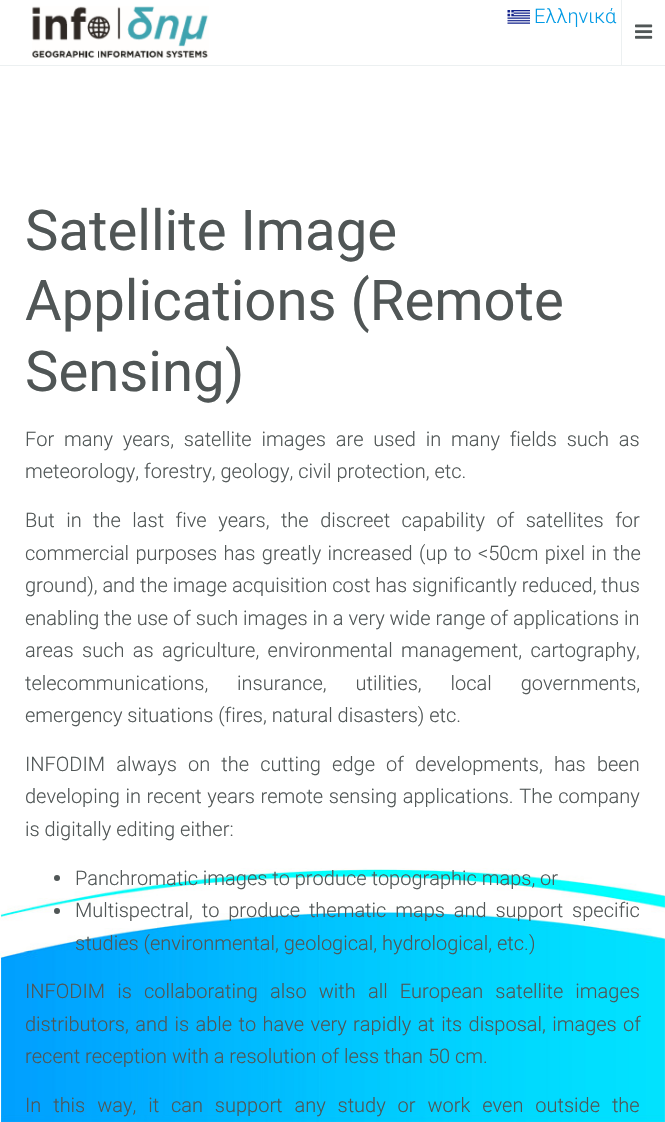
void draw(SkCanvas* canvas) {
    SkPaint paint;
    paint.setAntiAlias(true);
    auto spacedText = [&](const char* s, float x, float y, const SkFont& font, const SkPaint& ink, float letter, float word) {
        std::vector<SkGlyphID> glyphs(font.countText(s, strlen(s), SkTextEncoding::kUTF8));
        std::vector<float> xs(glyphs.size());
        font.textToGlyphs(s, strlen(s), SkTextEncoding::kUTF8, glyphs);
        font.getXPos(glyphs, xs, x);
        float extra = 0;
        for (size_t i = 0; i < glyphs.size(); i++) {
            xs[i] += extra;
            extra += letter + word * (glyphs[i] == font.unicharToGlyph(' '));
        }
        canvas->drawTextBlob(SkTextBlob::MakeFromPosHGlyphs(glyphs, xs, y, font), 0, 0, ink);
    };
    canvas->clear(0xFFFFFFFF);
    paint.setColor(0xFFECF0F1);
    canvas->drawRect(SkRect::MakeXYWH(0, 65, 665, 1), paint);
    canvas->drawImageRect(SkImages::DeferredFromEncodedData(SkData::MakeFromFileName("img1.png")), SkRect::MakeXYWH(32, 6, 177, 52), SkSamplingOptions());
    canvas->drawImageRect(SkImages::DeferredFromEncodedData(SkData::MakeFromFileName("img2.png")), SkRect::MakeXYWH(507, 10, 23, 14), SkSamplingOptions());
    SkFont font1(fontMgr->matchFamilyStyle("Roboto", SkFontStyle(300, SkFontStyle::kNormal_Width, SkFontStyle::kUpright_Slant)), 20);
    font1.setSubpixel(true);
    paint.setColor(0xFF039BE5);
    canvas->drawString("Ελληνικά", 534, 23, font1, paint);
    paint.setColor(0xFFECF0F1);
    canvas->drawRect(SkRect::MakeXYWH(621, 0, 1, 65), paint);
    canvas->drawImageRect(SkImages::DeferredFromEncodedData(SkData::MakeFromFileName("img3.png")), SkRect::MakeXYWH(635, 24, 18, 15), SkSamplingOptions());
    canvas->drawImageRect(SkImages::DeferredFromEncodedData(SkData::MakeFromFileName("img4.png")), SkRect::MakeXYWH(0, 868, 665, 254), SkSamplingOptions());
    SkFont font2(fontMgr->matchFamilyStyle("Roboto", SkFontStyle::Normal()), 56.25f);
    font2.setSubpixel(true);
    paint.setColor(0xFF505656);
    canvas->drawString("Satellite Image", 25, 250, font2, paint);
    canvas->drawString("Applications (Remote", 25, 320, font2, paint);
    canvas->drawString("Sensing)", 25, 391, font2, paint);
    spacedText("For many years, satellite images are used in many fields such as", 25, 446, font1, paint, 0, 4.9f);
    canvas->drawString("meteorology, forestry, geology, civil protection, etc.", 25, 478, font1, paint);
    spacedText("But in the last five years, the discreet capability of satellites for", 25, 527, font1, paint, 0, 6.6f);
    spacedText("commercial purposes has greatly increased (up to <50cm pixel in the", 25, 560, font1, paint, 0, 1.5f);
    canvas->drawString("ground), and the image acquisition cost has significantly reduced, thus", 25, 592, font1, paint);
    canvas->drawString("enabling the use of such images in a very wide range of applications in", 25, 625, font1, paint);
    spacedText("areas such as agriculture, environmental management, cartography,", 25, 657, font1, paint, 0, 3.5f);
    spacedText("telecommunications, insurance, utilities, local governments,", 25, 690, font1, paint, 0, 24);
    canvas->drawString("emergency situations (fires, natural disasters) etc.", 25, 722, font1, paint);
    spacedText("INFODIM always on the cutting edge of developments, has been", 25, 771, font1, paint, 0, 6.25f);
    spacedText("developing in recent years remote sensing applications. The company", 25, 803, font1, paint, 0, 0.75f);
    canvas->drawString("is digitally editing either:", 25, 836, font1, paint);
    canvas->drawCircle(57, 878, 3, paint);
    canvas->drawString("Panchromatic images to produce topographic maps, or", 75, 885, font1, paint);
    canvas->drawCircle(57, 911, 3, paint);
    spacedText("Multispectral, to produce thematic maps and support specific", 75, 917, font1, paint, 0, 4);
    canvas->drawString("studies (environmental, geological, hydrological, etc.)", 75, 950, font1, paint);
    spacedText("INFODIM is collaborating also with all European satellite images", 25, 998, font1, paint, 0, 7.25f);
    spacedText("distributors, and is able to have very rapidly at its disposal, images of", 25, 1031, font1, paint, 0, 1.5f);
    canvas->drawString("recent reception with a resolution of less than 50 cm.", 25, 1063, font1, paint);
    spacedText("In this way, it can support any study or work even outside the", 25, 1112, font1, paint, 0, 7);
}
